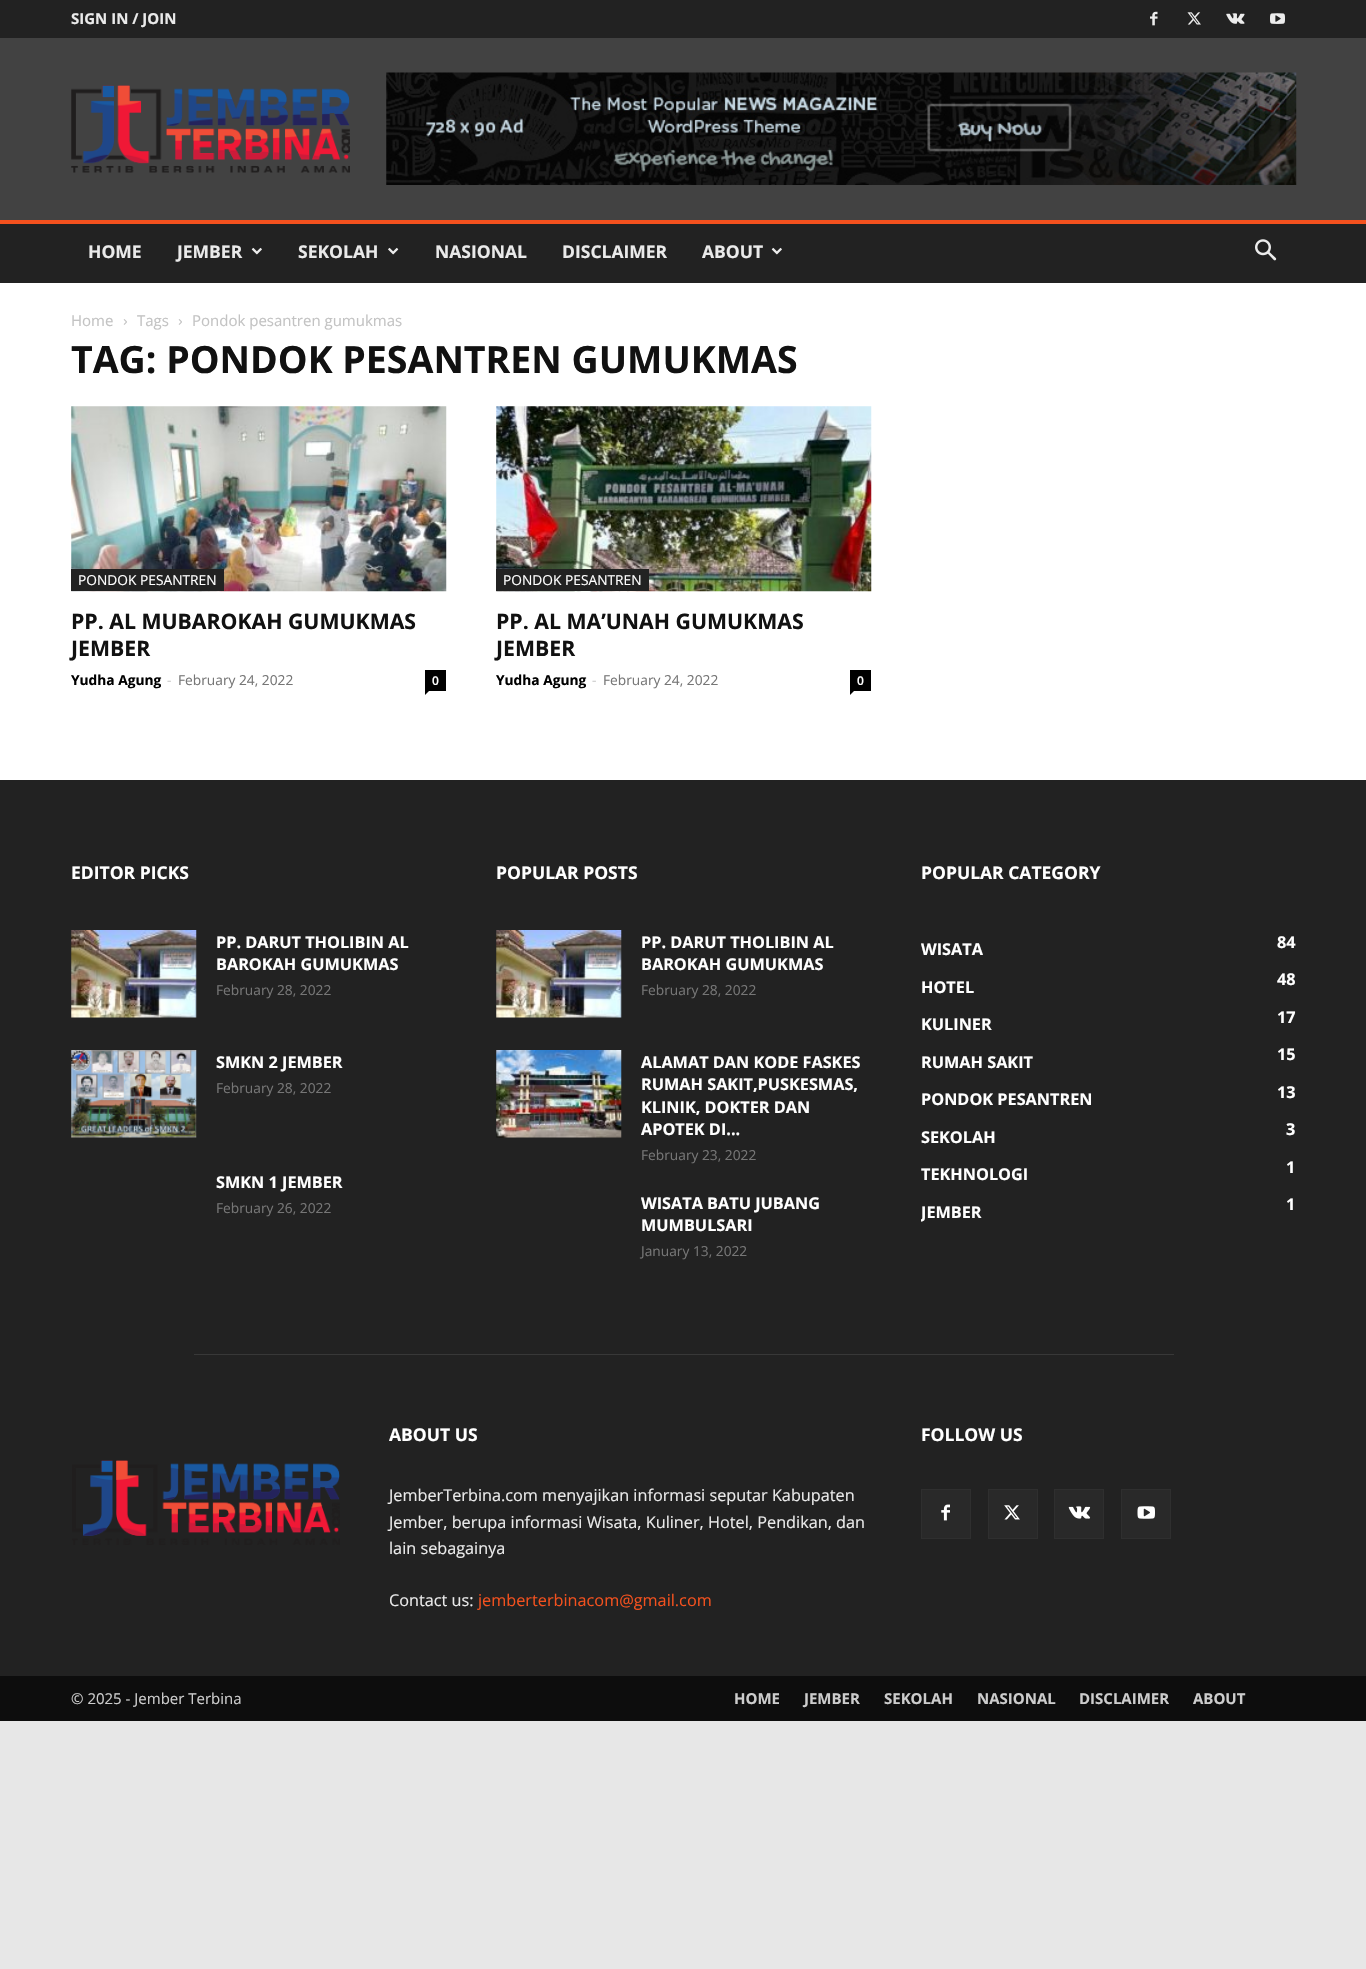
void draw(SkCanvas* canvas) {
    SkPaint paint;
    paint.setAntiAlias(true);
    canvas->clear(0xFFE7E7E7);
    paint.setColor(0xFF222222);
    canvas->drawRect(SkRect::MakeXYWH(0, 0, 1366, 38), paint);
    SkFont font1(fontMgr->matchFamilyStyle("Open Sans", SkFontStyle::Bold()), 15);
    font1.setSubpixel(true);
    paint.setColor(0xFFEAEAEA);
    canvas->drawString("SIGN IN / JOIN", 71, 24, font1, paint);
    canvas->drawImageRect(SkImages::DeferredFromEncodedData(SkData::MakeFromFileName("img1.png")), SkRect::MakeXYWH(1150, 11, 8, 15), SkSamplingOptions());
    canvas->drawImageRect(SkImages::DeferredFromEncodedData(SkData::MakeFromFileName("img2.png")), SkRect::MakeXYWH(1187, 12, 14, 13), SkSamplingOptions());
    canvas->drawImageRect(SkImages::DeferredFromEncodedData(SkData::MakeFromFileName("img3.png")), SkRect::MakeXYWH(1226, 13, 19, 11), SkSamplingOptions());
    canvas->drawImageRect(SkImages::DeferredFromEncodedData(SkData::MakeFromFileName("img4.png")), SkRect::MakeXYWH(1270, 13, 15, 11), SkSamplingOptions());
    paint.setColor(0xFF424242);
    canvas->drawRect(SkRect::MakeXYWH(0, 38, 1366, 182), paint);
    canvas->drawImageRect(SkImages::DeferredFromEncodedData(SkData::MakeFromFileName("img5.png")), SkRect::MakeXYWH(71, 85, 279, 88), SkSamplingOptions());
    canvas->drawImageRect(SkImages::DeferredFromEncodedData(SkData::MakeFromFileName("img6.png")), SkRect::MakeXYWH(386, 72, 911, 113), SkSamplingOptions());
    paint.setColor(0xFF222222);
    canvas->drawRect(SkRect::MakeXYWH(0, 224, 1366, 59), paint);
    paint.setColor(0xFFF4511E);
    canvas->drawRect(SkRect::MakeXYWH(0, 220, 1366, 4), paint);
    SkFont font2(fontMgr->matchFamilyStyle("Open Sans", SkFontStyle::Bold()), 17.5f);
    font2.setSubpixel(true);
    paint.setColor(0xFFEAEAEA);
    canvas->drawString("HOME", 88, 258, font2, paint);
    canvas->drawString("JEMBER", 177, 258, font2, paint);
    canvas->drawImageRect(SkImages::DeferredFromEncodedData(SkData::MakeFromFileName("img7.png")), SkRect::MakeXYWH(251, 247, 11, 8), SkSamplingOptions());
    canvas->drawString("SEKOLAH", 298, 258, font2, paint);
    canvas->drawImageRect(SkImages::DeferredFromEncodedData(SkData::MakeFromFileName("img8.png")), SkRect::MakeXYWH(388, 247, 11, 8), SkSamplingOptions());
    canvas->drawString("NASIONAL", 435, 258, font2, paint);
    canvas->drawString("DISCLAIMER", 562, 258, font2, paint);
    canvas->drawString("ABOUT", 702, 258, font2, paint);
    canvas->drawImageRect(SkImages::DeferredFromEncodedData(SkData::MakeFromFileName("img7.png")), SkRect::MakeXYWH(771, 247, 11, 8), SkSamplingOptions());
    canvas->drawImageRect(SkImages::DeferredFromEncodedData(SkData::MakeFromFileName("img9.png")), SkRect::MakeXYWH(1255, 239, 22, 22), SkSamplingOptions());
    paint.setColor(0xFFFFFFFF);
    canvas->drawRect(SkRect::MakeXYWH(0, 283, 1366, 497), paint);
    SkFont font3(fontMgr->matchFamilyStyle("Open Sans", SkFontStyle::Normal()), 15);
    font3.setSubpixel(true);
    paint.setColor(0xFFC3C3C3);
    canvas->drawString("Home", 71, 326, font3, paint);
    canvas->drawImageRect(SkImages::DeferredFromEncodedData(SkData::MakeFromFileName("img10.png")), SkRect::MakeXYWH(123, 319, 4, 6), SkSamplingOptions());
    canvas->drawString("Tags", 137, 326, font3, paint);
    canvas->drawImageRect(SkImages::DeferredFromEncodedData(SkData::MakeFromFileName("img10.png")), SkRect::MakeXYWH(178, 319, 4, 6), SkSamplingOptions());
    canvas->drawString("Pondok pesantren gumukmas", 192, 326, font3, paint);
    SkFont font4(fontMgr->matchFamilyStyle("Open Sans", SkFontStyle::Bold()), 37.5f);
    font4.setSubpixel(true);
    paint.setColor(0xFF111111);
    canvas->drawString("TAG: PONDOK PESANTREN GUMUKMAS", 71, 373, font4, paint);
    canvas->drawImageRect(SkImages::DeferredFromEncodedData(SkData::MakeFromFileName("img11.png")), SkRect::MakeXYWH(71, 406, 376, 186), SkSamplingOptions());
    paint.setColor(0xFF222222);
    canvas->drawRect(SkRect::MakeXYWH(71, 569, 153, 22), paint);
    SkFont font5(fontMgr->matchFamilyStyle("Open Sans", SkFontStyle::Normal()), 13.75f);
    font5.setSubpixel(true);
    paint.setColor(0xFFFFFFFF);
    canvas->drawString("PONDOK PESANTREN", 78, 585, font5, paint);
    SkFont font6(fontMgr->matchFamilyStyle("Open Sans", SkFontStyle::Bold()), 21.25f);
    font6.setSubpixel(true);
    paint.setColor(0xFF111111);
    canvas->drawString("PP. AL MUBAROKAH GUMUKMAS", 71, 629, font6, paint);
    canvas->drawString("JEMBER", 71, 656, font6, paint);
    SkFont font7(fontMgr->matchFamilyStyle("Open Sans", SkFontStyle::Bold()), 13.75f);
    font7.setSubpixel(true);
    paint.setColor(0xFF000000);
    canvas->drawString("Yudha Agung", 71, 685, font7, paint);
    paint.setColor(0xFFCCCCCC);
    canvas->drawString("-", 167, 685, font5, paint);
    paint.setColor(0xFF767676);
    canvas->drawString("February 24, 2022", 178, 685, font5, paint);
    paint.setColor(0xFF000000);
    canvas->drawRect(SkRect::MakeXYWH(425, 670, 21, 21), paint);
    SkFont font8(fontMgr->matchFamilyStyle("Open Sans", SkFontStyle(600, SkFontStyle::kNormal_Width, SkFontStyle::kUpright_Slant)), 12);
    font8.setSubpixel(true);
    paint.setColor(0xFFFFFFFF);
    canvas->drawString("0", 432, 685, font8, paint);
    paint.setColor(0xFF000000);
    canvas->drawPath(SkPathBuilder().moveTo(425, 691).lineTo(429, 691).lineTo(425, 695).close().detach(), paint);
    canvas->drawImageRect(SkImages::DeferredFromEncodedData(SkData::MakeFromFileName("img12.png")), SkRect::MakeXYWH(496, 406, 376, 186), SkSamplingOptions());
    paint.setColor(0xFF222222);
    canvas->drawRect(SkRect::MakeXYWH(496, 569, 153, 22), paint);
    paint.setColor(0xFFFFFFFF);
    canvas->drawString("PONDOK PESANTREN", 503, 585, font5, paint);
    paint.setColor(0xFF111111);
    canvas->drawString("PP. AL MA’UNAH GUMUKMAS", 496, 629, font6, paint);
    canvas->drawString("JEMBER", 496, 656, font6, paint);
    paint.setColor(0xFF000000);
    canvas->drawString("Yudha Agung", 496, 685, font7, paint);
    paint.setColor(0xFFCCCCCC);
    canvas->drawString("-", 592, 685, font5, paint);
    paint.setColor(0xFF767676);
    canvas->drawString("February 24, 2022", 603, 685, font5, paint);
    paint.setColor(0xFF000000);
    canvas->drawRect(SkRect::MakeXYWH(850, 670, 21, 21), paint);
    paint.setColor(0xFFFFFFFF);
    canvas->drawString("0", 857, 685, font8, paint);
    paint.setColor(0xFF000000);
    canvas->drawPath(SkPathBuilder().moveTo(850, 691).lineTo(854, 691).lineTo(850, 695).close().detach(), paint);
    paint.setColor(0xFF222222);
    canvas->drawRect(SkRect::MakeXYWH(0, 780, 1366, 896), paint);
    paint.setColor(0xFFFFFFFF);
    canvas->drawString("EDITOR PICKS", 71, 879, font2, paint);
    canvas->drawImageRect(SkImages::DeferredFromEncodedData(SkData::MakeFromFileName("img13.png")), SkRect::MakeXYWH(71, 930, 126, 88), SkSamplingOptions());
    SkFont font9(fontMgr->matchFamilyStyle("Open Sans", SkFontStyle::Bold()), 16.25f);
    font9.setSubpixel(true);
    canvas->drawString("PP. DARUT THOLIBIN AL", 216, 948, font9, paint);
    canvas->drawString("BAROKAH GUMUKMAS", 216, 970, font9, paint);
    paint.setColor(0xFF767676);
    canvas->drawString("February 28, 2022", 216, 995, font5, paint);
    canvas->drawImageRect(SkImages::DeferredFromEncodedData(SkData::MakeFromFileName("img14.png")), SkRect::MakeXYWH(71, 1050, 126, 88), SkSamplingOptions());
    paint.setColor(0xFFFFFFFF);
    canvas->drawString("SMKN 2 JEMBER", 216, 1068, font9, paint);
    paint.setColor(0xFF767676);
    canvas->drawString("February 28, 2022", 216, 1093, font5, paint);
    paint.setColor(0xFFFFFFFF);
    canvas->drawString("SMKN 1 JEMBER", 216, 1188, font9, paint);
    paint.setColor(0xFF767676);
    canvas->drawString("February 26, 2022", 216, 1213, font5, paint);
    paint.setColor(0xFFFFFFFF);
    canvas->drawString("POPULAR POSTS", 496, 879, font2, paint);
    canvas->drawImageRect(SkImages::DeferredFromEncodedData(SkData::MakeFromFileName("img13.png")), SkRect::MakeXYWH(496, 930, 126, 88), SkSamplingOptions());
    canvas->drawString("PP. DARUT THOLIBIN AL", 641, 948, font9, paint);
    canvas->drawString("BAROKAH GUMUKMAS", 641, 970, font9, paint);
    paint.setColor(0xFF767676);
    canvas->drawString("February 28, 2022", 641, 995, font5, paint);
    canvas->drawImageRect(SkImages::DeferredFromEncodedData(SkData::MakeFromFileName("img15.png")), SkRect::MakeXYWH(496, 1050, 126, 88), SkSamplingOptions());
    paint.setColor(0xFFFFFFFF);
    canvas->drawString("ALAMAT DAN KODE FASKES", 641, 1068, font9, paint);
    canvas->drawString("RUMAH SAKIT,PUSKESMAS,", 641, 1090, font9, paint);
    canvas->drawString("KLINIK, DOKTER DAN", 641, 1113, font9, paint);
    canvas->drawString("APOTEK DI...", 641, 1135, font9, paint);
    paint.setColor(0xFF767676);
    canvas->drawString("February 23, 2022", 641, 1160, font5, paint);
    paint.setColor(0xFFFFFFFF);
    canvas->drawString("WISATA BATU JUBANG", 641, 1209, font9, paint);
    canvas->drawString("MUMBULSARI", 641, 1231, font9, paint);
    paint.setColor(0xFF767676);
    canvas->drawString("January 13, 2022", 641, 1256, font5, paint);
    paint.setColor(0xFFFFFFFF);
    canvas->drawString("POPULAR CATEGORY", 921, 879, font2, paint);
    canvas->drawString("WISATA", 921, 955, font9, paint);
    canvas->drawString("84", 1277, 948, font9, paint);
    canvas->drawString("48", 1277, 985, font9, paint);
    canvas->drawString("HOTEL", 921, 993, font9, paint);
    canvas->drawString("KULINER", 921, 1030, font9, paint);
    canvas->drawString("17", 1277, 1023, font9, paint);
    canvas->drawString("15", 1277, 1060, font9, paint);
    canvas->drawString("RUMAH SAKIT", 921, 1068, font9, paint);
    canvas->drawString("PONDOK PESANTREN", 921, 1105, font9, paint);
    canvas->drawString("13", 1277, 1098, font9, paint);
    canvas->drawString("3", 1286, 1135, font9, paint);
    canvas->drawString("SEKOLAH", 921, 1143, font9, paint);
    canvas->drawString("TEKHNOLOGI", 921, 1180, font9, paint);
    canvas->drawString("1", 1286, 1173, font9, paint);
    canvas->drawString("1", 1286, 1210, font9, paint);
    canvas->save();
    canvas->clipRect(SkRect::MakeXYWH(921, 849, 375, 381));
    canvas->drawString("JEMBER", 921, 1218, font9, paint);
    canvas->restore();
    paint.setColor(0xFF383838);
    canvas->drawRect(SkRect::MakeXYWH(194, 1354, 980, 1), paint);
    paint.setColor(0xFFFFFFFF);
    canvas->drawString("ABOUT US", 389, 1441, font2, paint);
    SkFont font10(fontMgr->matchFamilyStyle("Open Sans", SkFontStyle::Normal()), 16.25f);
    font10.setSubpixel(true);
    paint.setColor(0xFFEAEAEA);
    canvas->drawString("JemberTerbina.com menyajikan informasi seputar Kabupaten", 389, 1501, font10, paint);
    canvas->drawString("Jember, berupa informasi Wisata, Kuliner, Hotel, Pendikan, dan", 389, 1528, font10, paint);
    canvas->drawString("lain sebagainya", 389, 1554, font10, paint);
    canvas->drawString("Contact us:", 389, 1606, font10, paint);
    paint.setColor(0xFFF4511E);
    canvas->drawString("jemberterbinacom@gmail.com", 478, 1606, font10, paint);
    paint.setColor(0xFFFFFFFF);
    canvas->drawString("FOLLOW US", 921, 1441, font2, paint);
    paint.setColor(0xFF292929);
    canvas->drawRect(SkRect::MakeXYWH(922, 1490, 48, 48), paint);
    canvas->drawImageRect(SkImages::DeferredFromEncodedData(SkData::MakeFromFileName("img16.png")), SkRect::MakeXYWH(941, 1504, 9, 17), SkSamplingOptions());
    paint.setStyle(SkPaint::kStroke_Style);
    paint.setStrokeWidth(1);
    paint.setColor(0xFF2F2F2F);
    canvas->drawRect(SkRect::MakeXYWH(921.5f, 1489.5f, 49, 49), paint);
    paint.setStyle(SkPaint::kFill_Style);
    paint.setColor(0xFF292929);
    canvas->drawRect(SkRect::MakeXYWH(989, 1490, 48, 48), paint);
    canvas->drawImageRect(SkImages::DeferredFromEncodedData(SkData::MakeFromFileName("img17.png")), SkRect::MakeXYWH(1004, 1505, 16, 15), SkSamplingOptions());
    paint.setStyle(SkPaint::kStroke_Style);
    paint.setColor(0xFF2F2F2F);
    canvas->drawRect(SkRect::MakeXYWH(988.5f, 1489.5f, 49, 49), paint);
    paint.setStyle(SkPaint::kFill_Style);
    paint.setColor(0xFF292929);
    canvas->drawRect(SkRect::MakeXYWH(1055, 1490, 48, 48), paint);
    canvas->drawImageRect(SkImages::DeferredFromEncodedData(SkData::MakeFromFileName("img18.png")), SkRect::MakeXYWH(1068, 1506, 23, 13), SkSamplingOptions());
    paint.setStyle(SkPaint::kStroke_Style);
    paint.setColor(0xFF2F2F2F);
    canvas->drawRect(SkRect::MakeXYWH(1054.5f, 1489.5f, 49, 49), paint);
    paint.setStyle(SkPaint::kFill_Style);
    paint.setColor(0xFF292929);
    canvas->drawRect(SkRect::MakeXYWH(1122, 1490, 48, 48), paint);
    canvas->drawImageRect(SkImages::DeferredFromEncodedData(SkData::MakeFromFileName("img19.png")), SkRect::MakeXYWH(1137, 1506, 18, 13), SkSamplingOptions());
    paint.setStyle(SkPaint::kStroke_Style);
    paint.setColor(0xFF2F2F2F);
    canvas->drawRect(SkRect::MakeXYWH(1121.5f, 1489.5f, 49, 49), paint);
    canvas->drawImageRect(SkImages::DeferredFromEncodedData(SkData::MakeFromFileName("img20.png")), SkRect::MakeXYWH(72, 1460, 268, 85), SkSamplingOptions());
    paint.setStyle(SkPaint::kFill_Style);
    paint.setColor(0xFF0D0D0D);
    canvas->drawRect(SkRect::MakeXYWH(0, 1676, 1366, 45), paint);
    paint.setColor(0xFFCCCCCC);
    canvas->drawString("© 2025 - Jember Terbina", 71, 1704, font3, paint);
    canvas->drawString("HOME", 734, 1704, font1, paint);
    canvas->drawString("JEMBER", 804, 1704, font1, paint);
    canvas->drawString("SEKOLAH", 884, 1704, font1, paint);
    canvas->drawString("NASIONAL", 977, 1704, font1, paint);
    canvas->drawString("DISCLAIMER", 1079, 1704, font1, paint);
    canvas->drawString("ABOUT", 1193, 1704, font1, paint);
}
